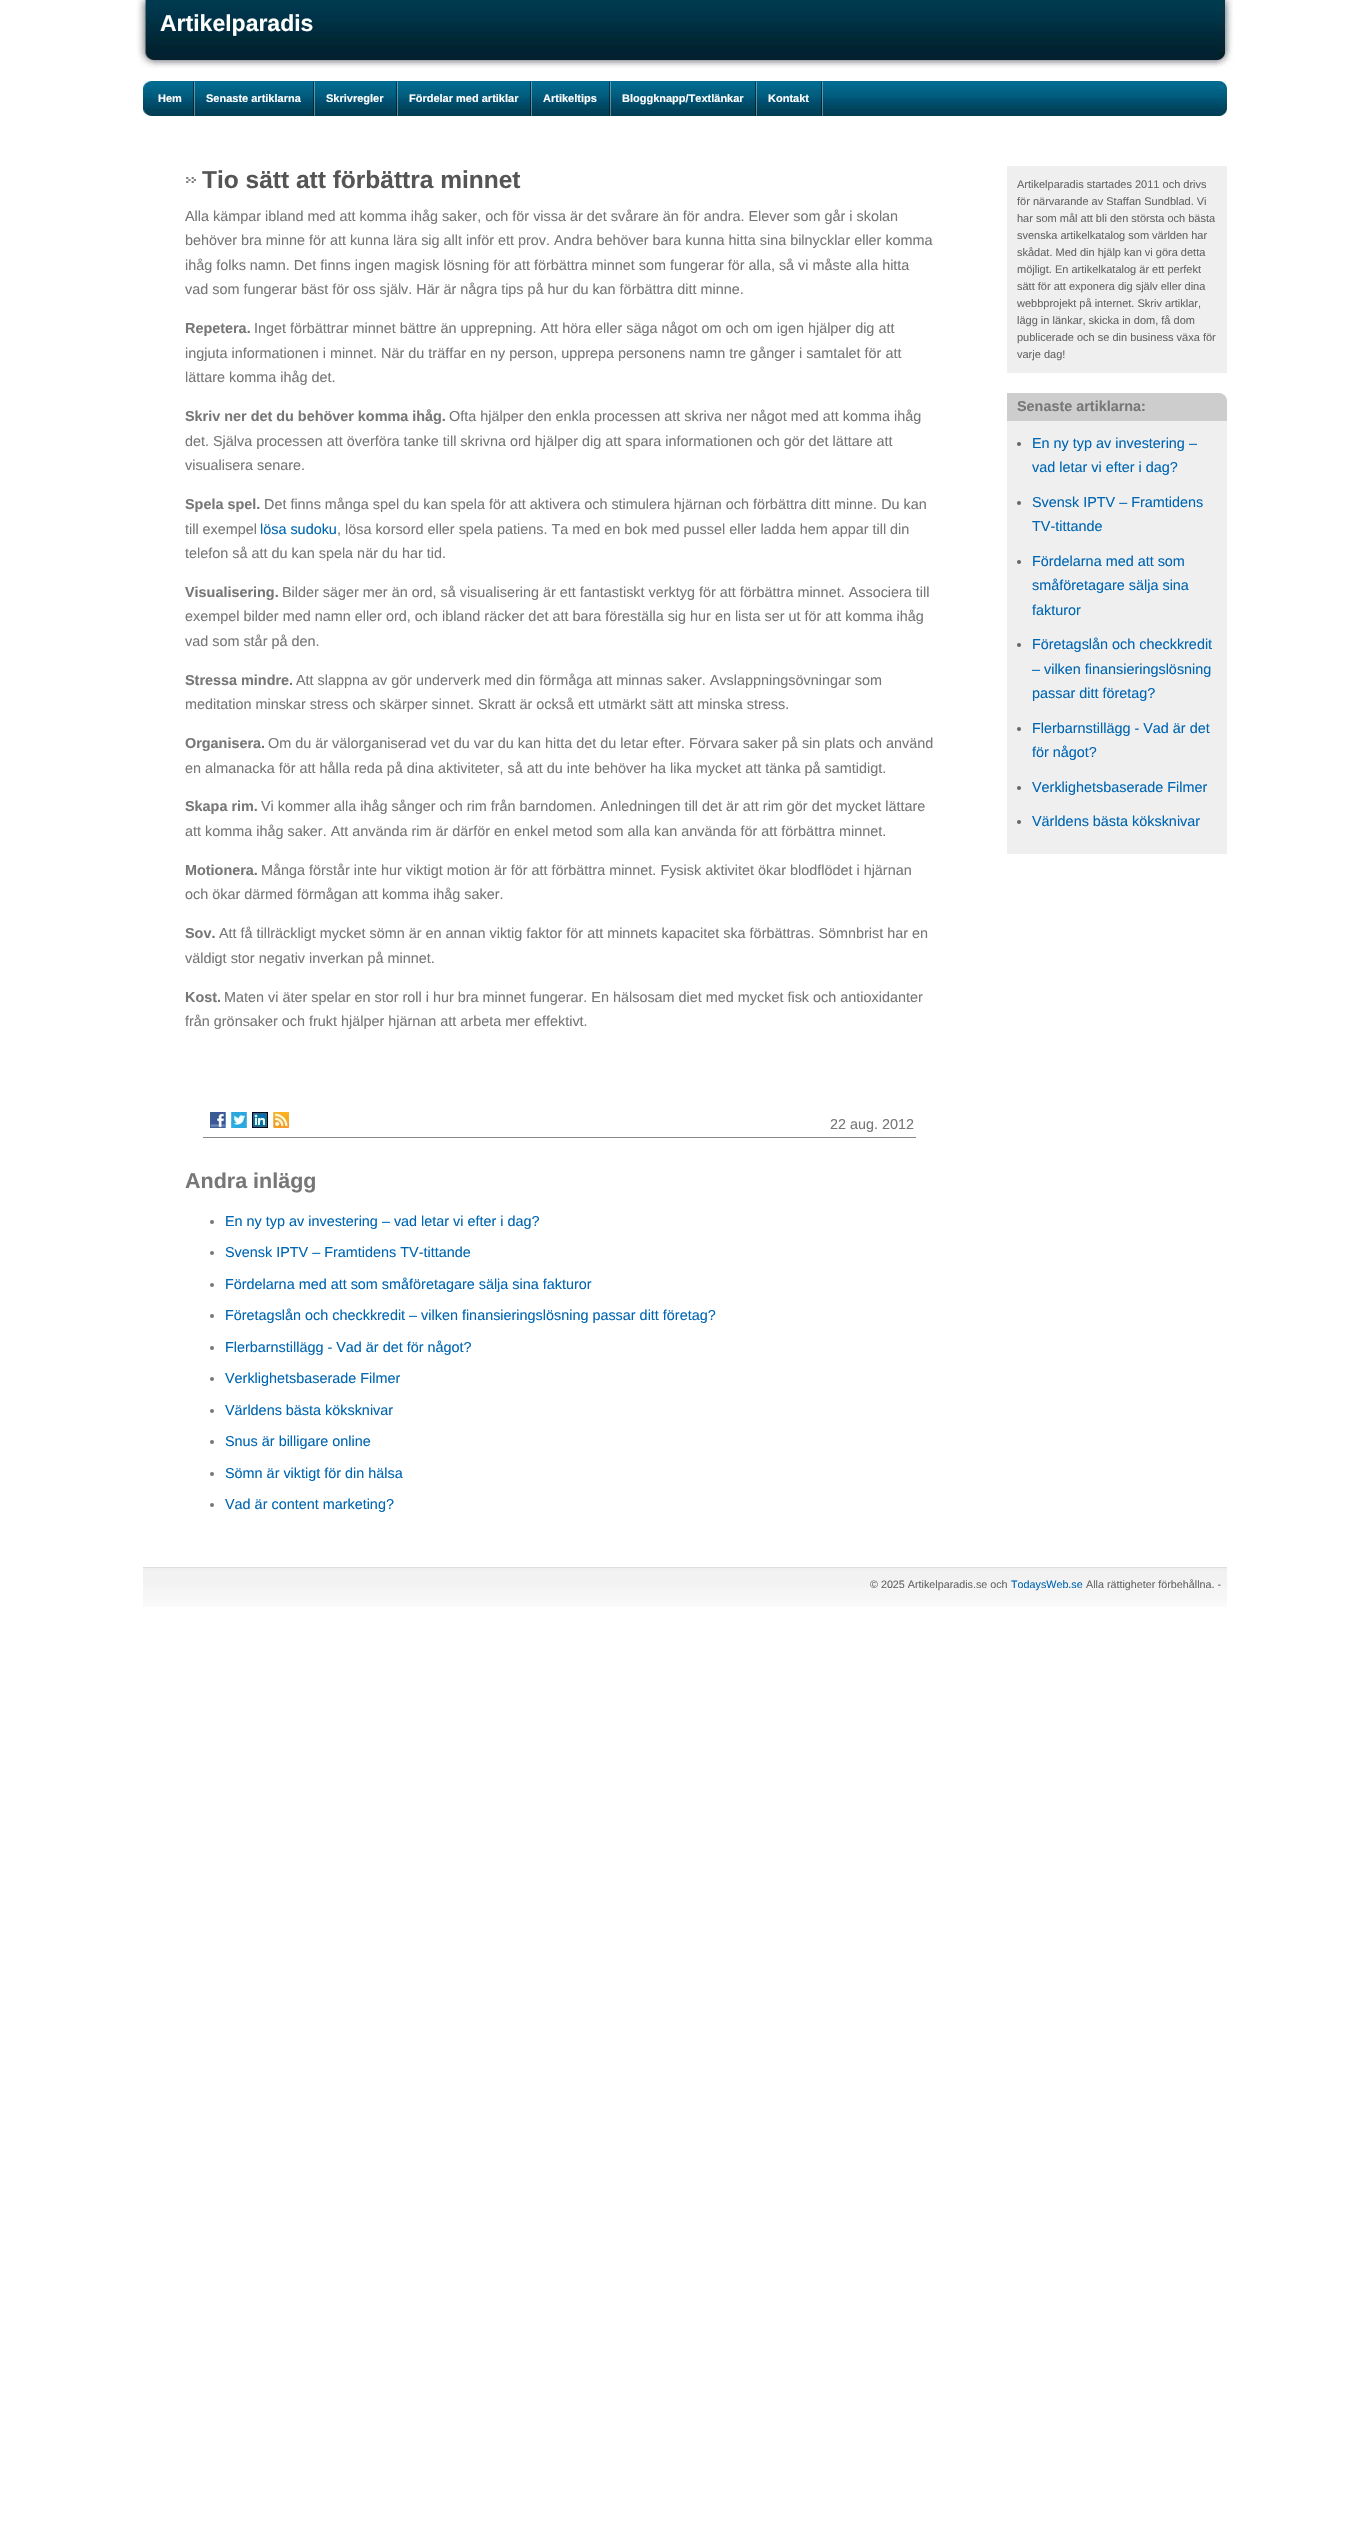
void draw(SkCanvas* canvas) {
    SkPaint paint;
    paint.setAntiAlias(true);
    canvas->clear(0xFFFFFFFF);
    canvas->drawImageRect(SkImages::DeferredFromEncodedData(SkData::MakeFromFileName("img1.png")), SkRect::MakeXYWH(154, 0, 1063, 68), SkSamplingOptions());
    canvas->drawImageRect(SkImages::DeferredFromEncodedData(SkData::MakeFromFileName("img2.png")), SkRect::MakeXYWH(135, 0, 19, 68), SkSamplingOptions());
    SkFont font1(fontMgr->matchFamilyStyle("Liberation Sans", SkFontStyle::Bold()), 23);
    font1.setSubpixel(true);
    paint.setColor(0xFFFFFFFF);
    canvas->drawString("Artikelparadis", 160, 31, font1, paint);
    canvas->drawImageRect(SkImages::DeferredFromEncodedData(SkData::MakeFromFileName("img3.png")), SkRect::MakeXYWH(1217, 0, 18, 68), SkSamplingOptions());
    canvas->drawImageRect(SkImages::DeferredFromEncodedData(SkData::MakeFromFileName("img4.png")), SkRect::MakeXYWH(152, 81, 1067, 35), SkSamplingOptions());
    canvas->drawImageRect(SkImages::DeferredFromEncodedData(SkData::MakeFromFileName("img5.png")), SkRect::MakeXYWH(143, 81, 9, 35), SkSamplingOptions());
    canvas->drawImageRect(SkImages::DeferredFromEncodedData(SkData::MakeFromFileName("img6.png")), SkRect::MakeXYWH(191, 81, 5, 35), SkSamplingOptions());
    SkFont font2(fontMgr->matchFamilyStyle("Liberation Sans", SkFontStyle::Bold()), 11);
    font2.setSubpixel(true);
    canvas->drawString("Hem", 158, 102, font2, paint);
    canvas->drawImageRect(SkImages::DeferredFromEncodedData(SkData::MakeFromFileName("img6.png")), SkRect::MakeXYWH(311, 81, 5, 35), SkSamplingOptions());
    canvas->drawString("Senaste artiklarna", 206, 102, font2, paint);
    canvas->drawImageRect(SkImages::DeferredFromEncodedData(SkData::MakeFromFileName("img6.png")), SkRect::MakeXYWH(394, 81, 5, 35), SkSamplingOptions());
    canvas->drawString("Skrivregler", 326, 102, font2, paint);
    canvas->drawImageRect(SkImages::DeferredFromEncodedData(SkData::MakeFromFileName("img6.png")), SkRect::MakeXYWH(528, 81, 5, 35), SkSamplingOptions());
    canvas->drawString("Fördelar med artiklar", 409, 102, font2, paint);
    canvas->drawImageRect(SkImages::DeferredFromEncodedData(SkData::MakeFromFileName("img6.png")), SkRect::MakeXYWH(607, 81, 5, 35), SkSamplingOptions());
    canvas->drawString("Artikeltips", 543, 102, font2, paint);
    canvas->drawImageRect(SkImages::DeferredFromEncodedData(SkData::MakeFromFileName("img6.png")), SkRect::MakeXYWH(753, 81, 5, 35), SkSamplingOptions());
    canvas->drawString("Bloggknapp/Textlänkar", 622, 102, font2, paint);
    canvas->drawImageRect(SkImages::DeferredFromEncodedData(SkData::MakeFromFileName("img6.png")), SkRect::MakeXYWH(819, 81, 5, 35), SkSamplingOptions());
    canvas->drawString("Kontakt", 768, 102, font2, paint);
    canvas->drawImageRect(SkImages::DeferredFromEncodedData(SkData::MakeFromFileName("img7.png")), SkRect::MakeXYWH(1219, 81, 8, 35), SkSamplingOptions());
    canvas->drawImageRect(SkImages::DeferredFromEncodedData(SkData::MakeFromFileName("img8.png")), SkRect::MakeXYWH(186, 177, 10, 6), SkSamplingOptions());
    SkFont font3(fontMgr->matchFamilyStyle("Liberation Sans", SkFontStyle::Bold()), 24.5f);
    font3.setSubpixel(true);
    paint.setColor(0xFF555555);
    canvas->drawString("Tio sätt att förbättra minnet", 202, 188, font3, paint);
    SkFont font4(fontMgr->matchFamilyStyle("Liberation Sans", SkFontStyle::Normal()), 14.4f);
    font4.setSubpixel(true);
    paint.setColor(0xFF777777);
    canvas->drawString("Alla kämpar ibland med att komma ihåg saker, och för vissa är det svårare än för andra. Elever som går i skolan", 185, 221, font4, paint);
    canvas->drawString("behöver bra minne för att kunna lära sig allt inför ett prov. Andra behöver bara kunna hitta sina bilnycklar eller komma", 185, 245, font4, paint);
    canvas->drawString("ihåg folks namn. Det finns ingen magisk lösning för att förbättra minnet som fungerar för alla, så vi måste alla hitta", 185, 270, font4, paint);
    canvas->drawString("vad som fungerar bäst för oss själv. Här är några tips på hur du kan förbättra ditt minne.", 185, 294, font4, paint);
    SkFont font5(fontMgr->matchFamilyStyle("Liberation Sans", SkFontStyle::Bold()), 14.4f);
    font5.setSubpixel(true);
    canvas->drawString("Repetera.", 185, 333, font5, paint);
    canvas->drawString("Inget förbättrar minnet bättre än upprepning. Att höra eller säga något om och om igen hjälper dig att", 254, 333, font4, paint);
    canvas->drawString("ingjuta informationen i minnet. När du träffar en ny person, upprepa personens namn tre gånger i samtalet för att", 185, 358, font4, paint);
    canvas->drawString("lättare komma ihåg det.", 185, 382, font4, paint);
    canvas->drawString("Skriv ner det du behöver komma ihåg.", 185, 421, font5, paint);
    canvas->drawString("Ofta hjälper den enkla processen att skriva ner något med att komma ihåg", 449, 421, font4, paint);
    canvas->drawString("det. Själva processen att överföra tanke till skrivna ord hjälper dig att spara informationen och gör det lättare att", 185, 446, font4, paint);
    canvas->drawString("visualisera senare.", 185, 470, font4, paint);
    canvas->drawString("Spela spel.", 185, 509, font5, paint);
    canvas->drawString("Det finns många spel du kan spela för att aktivera och stimulera hjärnan och förbättra ditt minne. Du kan", 264, 509, font4, paint);
    canvas->drawString("till exempel", 185, 534, font4, paint);
    paint.setColor(0xFF0066B3);
    canvas->drawString("lösa sudoku", 260, 534, font4, paint);
    paint.setColor(0xFF777777);
    canvas->drawString(", lösa korsord eller spela patiens. Ta med en bok med pussel eller ladda hem appar till din", 337, 534, font4, paint);
    canvas->drawString("telefon så att du kan spela när du har tid.", 185, 558, font4, paint);
    canvas->drawString("Visualisering.", 185, 597, font5, paint);
    canvas->drawString("Bilder säger mer än ord, så visualisering är ett fantastiskt verktyg för att förbättra minnet. Associera till", 282, 597, font4, paint);
    canvas->drawString("exempel bilder med namn eller ord, och ibland räcker det att bara föreställa sig hur en lista ser ut för att komma ihåg", 185, 621, font4, paint);
    canvas->drawString("vad som står på den.", 185, 646, font4, paint);
    canvas->drawString("Stressa mindre.", 185, 685, font5, paint);
    canvas->drawString("Att slappna av gör underverk med din förmåga att minnas saker. Avslappningsövningar som", 296, 685, font4, paint);
    canvas->drawString("meditation minskar stress och skärper sinnet. Skratt är också ett utmärkt sätt att minska stress.", 185, 709, font4, paint);
    canvas->drawString("Organisera.", 185, 748, font5, paint);
    canvas->drawString("Om du är välorganiserad vet du var du kan hitta det du letar efter. Förvara saker på sin plats och använd", 268, 748, font4, paint);
    canvas->drawString("en almanacka för att hålla reda på dina aktiviteter, så att du inte behöver ha lika mycket att tänka på samtidigt.", 185, 773, font4, paint);
    canvas->drawString("Skapa rim.", 185, 811, font5, paint);
    canvas->drawString("Vi kommer alla ihåg sånger och rim från barndomen. Anledningen till det är att rim gör det mycket lättare", 261, 811, font4, paint);
    canvas->drawString("att komma ihåg saker. Att använda rim är därför en enkel metod som alla kan använda för att förbättra minnet.", 185, 836, font4, paint);
    canvas->drawString("Motionera.", 185, 875, font5, paint);
    canvas->drawString("Många förstår inte hur viktigt motion är för att förbättra minnet. Fysisk aktivitet ökar blodflödet i hjärnan", 261, 875, font4, paint);
    canvas->drawString("och ökar därmed förmågan att komma ihåg saker.", 185, 899, font4, paint);
    canvas->drawString("Sov.", 185, 938, font5, paint);
    canvas->drawString("Att få tillräckligt mycket sömn är en annan viktig faktor för att minnets kapacitet ska förbättras. Sömnbrist har en", 219, 938, font4, paint);
    canvas->drawString("väldigt stor negativ inverkan på minnet.", 185, 963, font4, paint);
    canvas->drawString("Kost.", 185, 1002, font5, paint);
    canvas->drawString("Maten vi äter spelar en stor roll i hur bra minnet fungerar. En hälsosam diet med mycket fisk och antioxidanter", 224, 1002, font4, paint);
    canvas->drawString("från grönsaker och frukt hjälper hjärnan att arbeta mer effektivt.", 185, 1026, font4, paint);
    canvas->drawImageRect(SkImages::DeferredFromEncodedData(SkData::MakeFromFileName("img9.png")), SkRect::MakeXYWH(210, 1112, 16, 16), SkSamplingOptions());
    canvas->drawImageRect(SkImages::DeferredFromEncodedData(SkData::MakeFromFileName("img10.png")), SkRect::MakeXYWH(231, 1112, 16, 16), SkSamplingOptions());
    canvas->drawImageRect(SkImages::DeferredFromEncodedData(SkData::MakeFromFileName("img11.png")), SkRect::MakeXYWH(252, 1112, 16, 16), SkSamplingOptions());
    canvas->drawImageRect(SkImages::DeferredFromEncodedData(SkData::MakeFromFileName("img12.png")), SkRect::MakeXYWH(273, 1112, 16, 16), SkSamplingOptions());
    canvas->drawString("22 aug. 2012", 830, 1129, font4, paint);
    paint.setColor(0xFF888888);
    canvas->drawRect(SkRect::MakeXYWH(203, 1137, 713, 1), paint);
    SkFont font6(fontMgr->matchFamilyStyle("Liberation Sans", SkFontStyle::Bold()), 21.5f);
    font6.setSubpixel(true);
    paint.setColor(0xFF777777);
    canvas->drawString("Andra inlägg", 185, 1188, font6, paint);
    canvas->drawCircle(212, 1222, 2, paint);
    paint.setColor(0xFF0066B3);
    canvas->drawString("En ny typ av investering – vad letar vi efter i dag?", 225, 1226, font4, paint);
    paint.setColor(0xFF777777);
    canvas->drawCircle(212, 1253, 2, paint);
    paint.setColor(0xFF0066B3);
    canvas->drawString("Svensk IPTV – Framtidens TV-tittande", 225, 1257, font4, paint);
    paint.setColor(0xFF777777);
    canvas->drawCircle(212, 1285, 2, paint);
    paint.setColor(0xFF0066B3);
    canvas->drawString("Fördelarna med att som småföretagare sälja sina fakturor", 225, 1289, font4, paint);
    paint.setColor(0xFF777777);
    canvas->drawCircle(212, 1316, 2, paint);
    paint.setColor(0xFF0066B3);
    canvas->drawString("Företagslån och checkkredit – vilken finansieringslösning passar ditt företag?", 225, 1320, font4, paint);
    paint.setColor(0xFF777777);
    canvas->drawCircle(212, 1348, 2, paint);
    paint.setColor(0xFF0066B3);
    canvas->drawString("Flerbarnstillägg - Vad är det för något?", 225, 1352, font4, paint);
    paint.setColor(0xFF777777);
    canvas->drawCircle(212, 1379, 2, paint);
    paint.setColor(0xFF0066B3);
    canvas->drawString("Verklighetsbaserade Filmer", 225, 1383, font4, paint);
    paint.setColor(0xFF777777);
    canvas->drawCircle(212, 1411, 2, paint);
    paint.setColor(0xFF0066B3);
    canvas->drawString("Världens bästa köksknivar", 225, 1415, font4, paint);
    paint.setColor(0xFF777777);
    canvas->drawCircle(212, 1442, 2, paint);
    paint.setColor(0xFF0066B3);
    canvas->drawString("Snus är billigare online", 225, 1446, font4, paint);
    paint.setColor(0xFF777777);
    canvas->drawCircle(212, 1474, 2, paint);
    paint.setColor(0xFF0066B3);
    canvas->drawString("Sömn är viktigt för din hälsa", 225, 1478, font4, paint);
    paint.setColor(0xFF777777);
    canvas->drawCircle(212, 1505, 2, paint);
    paint.setColor(0xFF0066B3);
    canvas->drawString("Vad är content marketing?", 225, 1509, font4, paint);
    paint.setColor(0xFFEFEFEF);
    canvas->drawRect(SkRect::MakeXYWH(1007, 166, 220, 207), paint);
    SkFont font7(fontMgr->matchFamilyStyle("Liberation Sans", SkFontStyle::Normal()), 11);
    font7.setSubpixel(true);
    paint.setColor(0xFF666666);
    canvas->drawString("Artikelparadis startades 2011 och drivs", 1017, 188, font7, paint);
    canvas->drawString("för närvarande av Staffan Sundblad. Vi", 1017, 205, font7, paint);
    canvas->drawString("har som mål att bli den största och bästa", 1017, 222, font7, paint);
    canvas->drawString("svenska artikelkatalog som världen har", 1017, 239, font7, paint);
    canvas->drawString("skådat. Med din hjälp kan vi göra detta", 1017, 256, font7, paint);
    canvas->drawString("möjligt. En artikelkatalog är ett perfekt", 1017, 273, font7, paint);
    canvas->drawString("sätt för att exponera dig själv eller dina", 1017, 290, font7, paint);
    canvas->drawString("webbprojekt på internet. Skriv artiklar,", 1017, 307, font7, paint);
    canvas->drawString("lägg in länkar, skicka in dom, få dom", 1017, 324, font7, paint);
    canvas->drawString("publicerade och se din business växa för", 1017, 341, font7, paint);
    canvas->drawString("varje dag!", 1017, 358, font7, paint);
    paint.setColor(0xFFCDCDCD);
    canvas->drawRect(SkRect::MakeXYWH(1007, 393, 220, 28), paint);
    canvas->drawImageRect(SkImages::DeferredFromEncodedData(SkData::MakeFromFileName("img13.png")), SkRect::MakeXYWH(1220, 393, 7, 7), SkSamplingOptions());
    paint.setColor(0xFF777777);
    canvas->drawString("Senaste artiklarna:", 1017, 411, font5, paint);
    paint.setColor(0xFFEFEFEF);
    canvas->drawRect(SkRect::MakeXYWH(1007, 421, 220, 433), paint);
    paint.setColor(0xFF666666);
    canvas->drawCircle(1019, 444, 2, paint);
    paint.setColor(0xFF0066B3);
    canvas->drawString("En ny typ av investering –", 1032, 448, font4, paint);
    canvas->drawString("vad letar vi efter i dag?", 1032, 472, font4, paint);
    paint.setColor(0xFF666666);
    canvas->drawCircle(1019, 503, 2, paint);
    paint.setColor(0xFF0066B3);
    canvas->drawString("Svensk IPTV – Framtidens", 1032, 507, font4, paint);
    canvas->drawString("TV-tittande", 1032, 531, font4, paint);
    paint.setColor(0xFF666666);
    canvas->drawCircle(1019, 562, 2, paint);
    paint.setColor(0xFF0066B3);
    canvas->drawString("Fördelarna med att som", 1032, 566, font4, paint);
    canvas->drawString("småföretagare sälja sina", 1032, 590, font4, paint);
    canvas->drawString("fakturor", 1032, 615, font4, paint);
    paint.setColor(0xFF666666);
    canvas->drawCircle(1019, 645, 2, paint);
    paint.setColor(0xFF0066B3);
    canvas->drawString("Företagslån och checkkredit", 1032, 649, font4, paint);
    canvas->drawString("– vilken finansieringslösning", 1032, 674, font4, paint);
    canvas->drawString("passar ditt företag?", 1032, 698, font4, paint);
    paint.setColor(0xFF666666);
    canvas->drawCircle(1019, 729, 2, paint);
    paint.setColor(0xFF0066B3);
    canvas->drawString("Flerbarnstillägg - Vad är det", 1032, 733, font4, paint);
    canvas->drawString("för något?", 1032, 757, font4, paint);
    paint.setColor(0xFF666666);
    canvas->drawCircle(1019, 788, 2, paint);
    paint.setColor(0xFF0066B3);
    canvas->drawString("Verklighetsbaserade Filmer", 1032, 792, font4, paint);
    paint.setColor(0xFF666666);
    canvas->drawCircle(1019, 822, 2, paint);
    paint.setColor(0xFF0066B3);
    canvas->drawString("Världens bästa köksknivar", 1032, 826, font4, paint);
    canvas->drawImageRect(SkImages::DeferredFromEncodedData(SkData::MakeFromFileName("img14.png")), SkRect::MakeXYWH(143, 1567, 1084, 40), SkSamplingOptions());
    SkFont font8(fontMgr->matchFamilyStyle("Liberation Sans", SkFontStyle::Normal()), 10.75f);
    font8.setSubpixel(true);
    paint.setColor(0xFF666666);
    canvas->drawString("© 2025 Artikelparadis.se och", 870, 1588, font8, paint);
    paint.setColor(0xFF0066B3);
    canvas->drawString("TodaysWeb.se", 1011, 1588, font8, paint);
    paint.setColor(0xFF666666);
    canvas->drawString("Alla rättigheter förbehållna. -", 1086, 1588, font8, paint);
}
